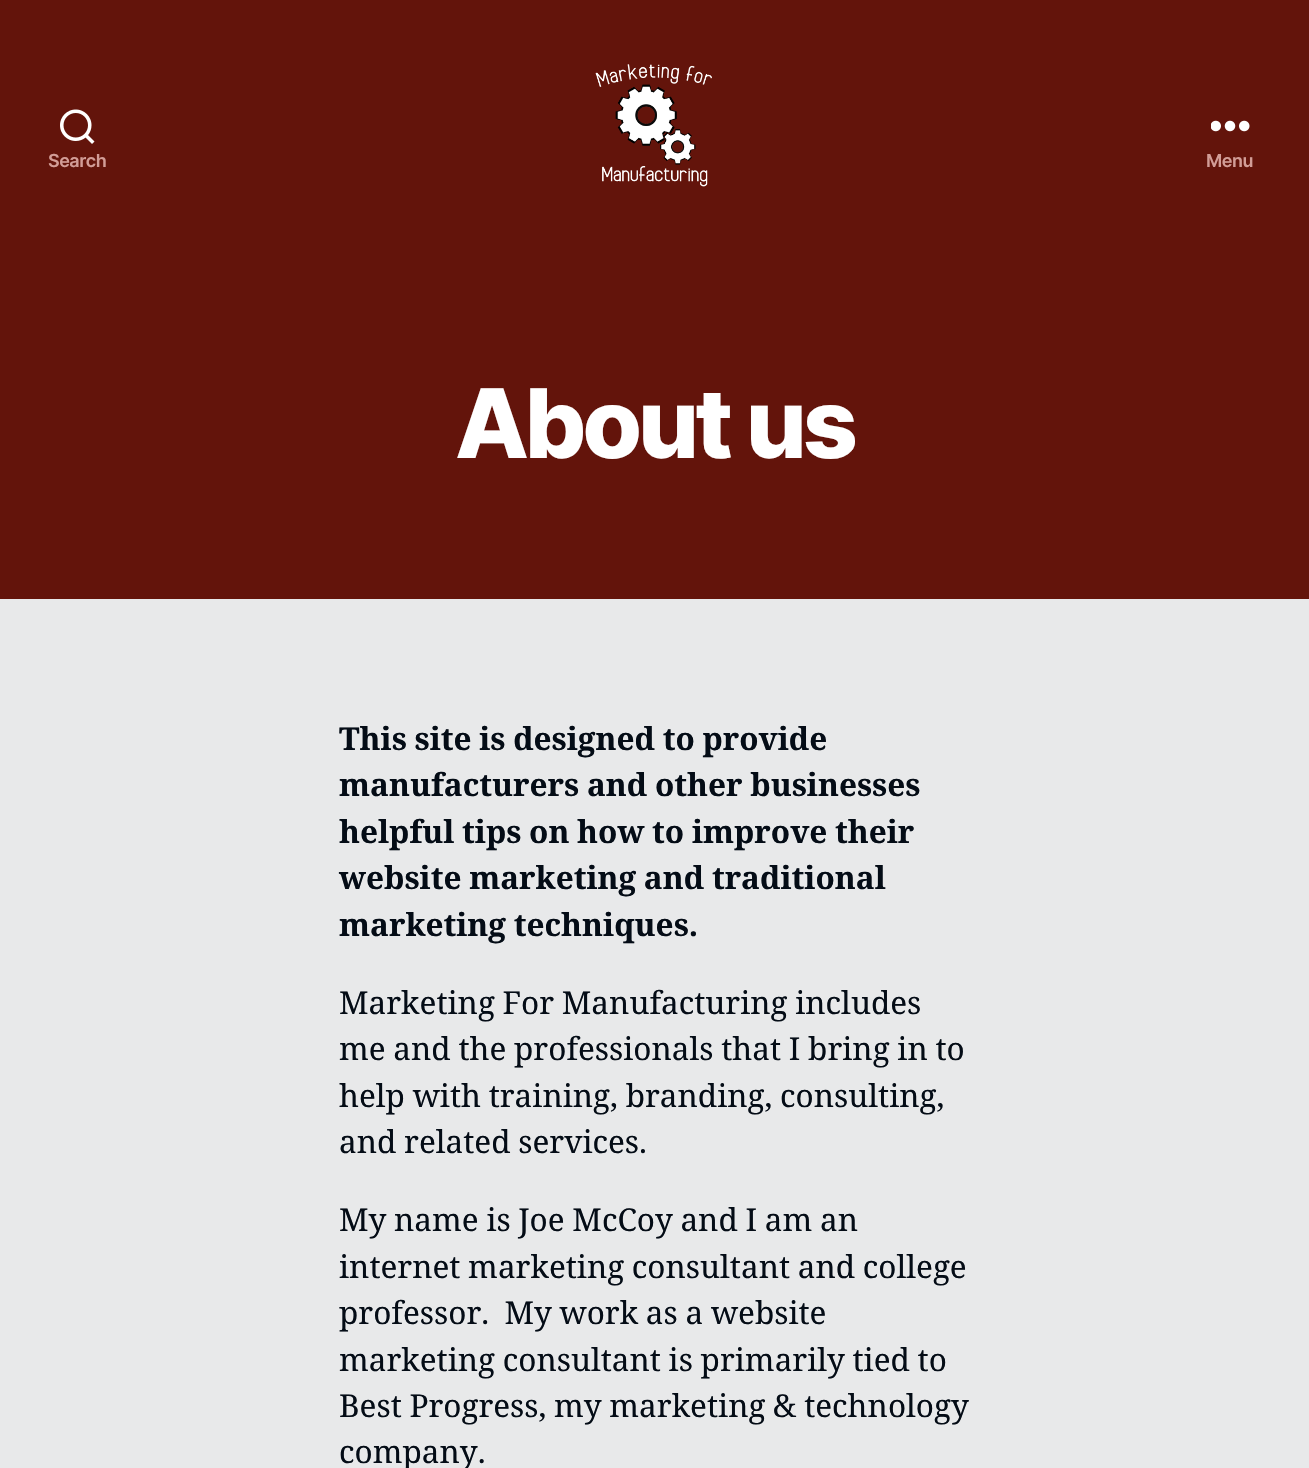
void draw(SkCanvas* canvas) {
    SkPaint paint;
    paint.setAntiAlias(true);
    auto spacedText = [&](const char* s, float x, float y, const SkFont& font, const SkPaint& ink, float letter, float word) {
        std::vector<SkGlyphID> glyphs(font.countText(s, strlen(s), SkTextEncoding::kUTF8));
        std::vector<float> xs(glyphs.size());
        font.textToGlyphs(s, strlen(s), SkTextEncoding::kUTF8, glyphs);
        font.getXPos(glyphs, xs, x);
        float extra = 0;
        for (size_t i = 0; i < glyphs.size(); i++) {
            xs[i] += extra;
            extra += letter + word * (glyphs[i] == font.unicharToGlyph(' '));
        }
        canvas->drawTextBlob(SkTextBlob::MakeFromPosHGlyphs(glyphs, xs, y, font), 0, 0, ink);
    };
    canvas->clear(0xFFE8E9EA);
    paint.setColor(0xFF63140B);
    canvas->drawRect(SkRect::MakeXYWH(0, 0, 1309, 599), paint);
    canvas->drawImageRect(SkImages::DeferredFromEncodedData(SkData::MakeFromFileName("img1.png")), SkRect::MakeXYWH(60, 109, 35, 35), SkSamplingOptions());
    SkFont font1(fontMgr->matchFamilyStyle("Inter", SkFontStyle(600, SkFontStyle::kNormal_Width, SkFontStyle::kUpright_Slant)), 18);
    font1.setSubpixel(true);
    paint.setColor(0xFFD29D97);
    spacedText("Search", 48, 167, font1, paint, -0.5f, 0);
    canvas->drawImageRect(SkImages::DeferredFromEncodedData(SkData::MakeFromFileName("img2.png")), SkRect::MakeXYWH(595, 64, 117, 123), SkSamplingOptions());
    canvas->drawImageRect(SkImages::DeferredFromEncodedData(SkData::MakeFromFileName("img3.png")), SkRect::MakeXYWH(1211, 120, 39, 12), SkSamplingOptions());
    spacedText("Menu", 1206, 167, font1, paint, -0.5f, 0);
    SkFont font2(fontMgr->matchFamilyStyle("Inter", SkFontStyle(800, SkFontStyle::kNormal_Width, SkFontStyle::kUpright_Slant)), 96);
    font2.setSubpixel(true);
    paint.setColor(0xFFFFFFFF);
    spacedText("About us", 455, 458, font2, paint, -4, 0);
    SkFont font3(fontMgr->matchFamilyStyle("Noto Serif", SkFontStyle::Bold()), 31.5f);
    font3.setSubpixel(true);
    paint.setColor(0xFF040C16);
    spacedText("This site is designed to provide", 339, 750, font3, paint, 0, -0.5f);
    spacedText("manufacturers and other businesses", 339, 796, font3, paint, 0, -0.5f);
    spacedText("helpful tips on how to improve their", 339, 843, font3, paint, 0, -0.5f);
    spacedText("website marketing and traditional", 339, 889, font3, paint, 0, -0.5f);
    spacedText("marketing techniques.", 339, 936, font3, paint, 0, -0.5f);
    SkFont font4(fontMgr->matchFamilyStyle("Noto Serif", SkFontStyle::Normal()), 31.5f);
    font4.setSubpixel(true);
    spacedText("Marketing For Manufacturing includes", 339, 1014, font4, paint, 0, -0.5f);
    spacedText("me and the professionals that I bring in to", 339, 1060, font4, paint, 0, -0.5f);
    spacedText("help with training, branding, consulting,", 339, 1107, font4, paint, 0, -0.5f);
    spacedText("and related services.", 339, 1153, font4, paint, 0, -0.5f);
    spacedText("My name is Joe McCoy and I am an", 339, 1231, font4, paint, 0, -0.5f);
    spacedText("internet marketing consultant and college", 339, 1278, font4, paint, 0, -0.5f);
    spacedText("professor.  My work as a website", 339, 1324, font4, paint, 0, -0.5f);
    spacedText("marketing consultant is primarily tied to", 339, 1371, font4, paint, 0, -0.5f);
    spacedText("Best Progress, my marketing & technology", 339, 1417, font4, paint, 0, -0.5f);
    canvas->drawString("company.", 339, 1463, font4, paint);
}
